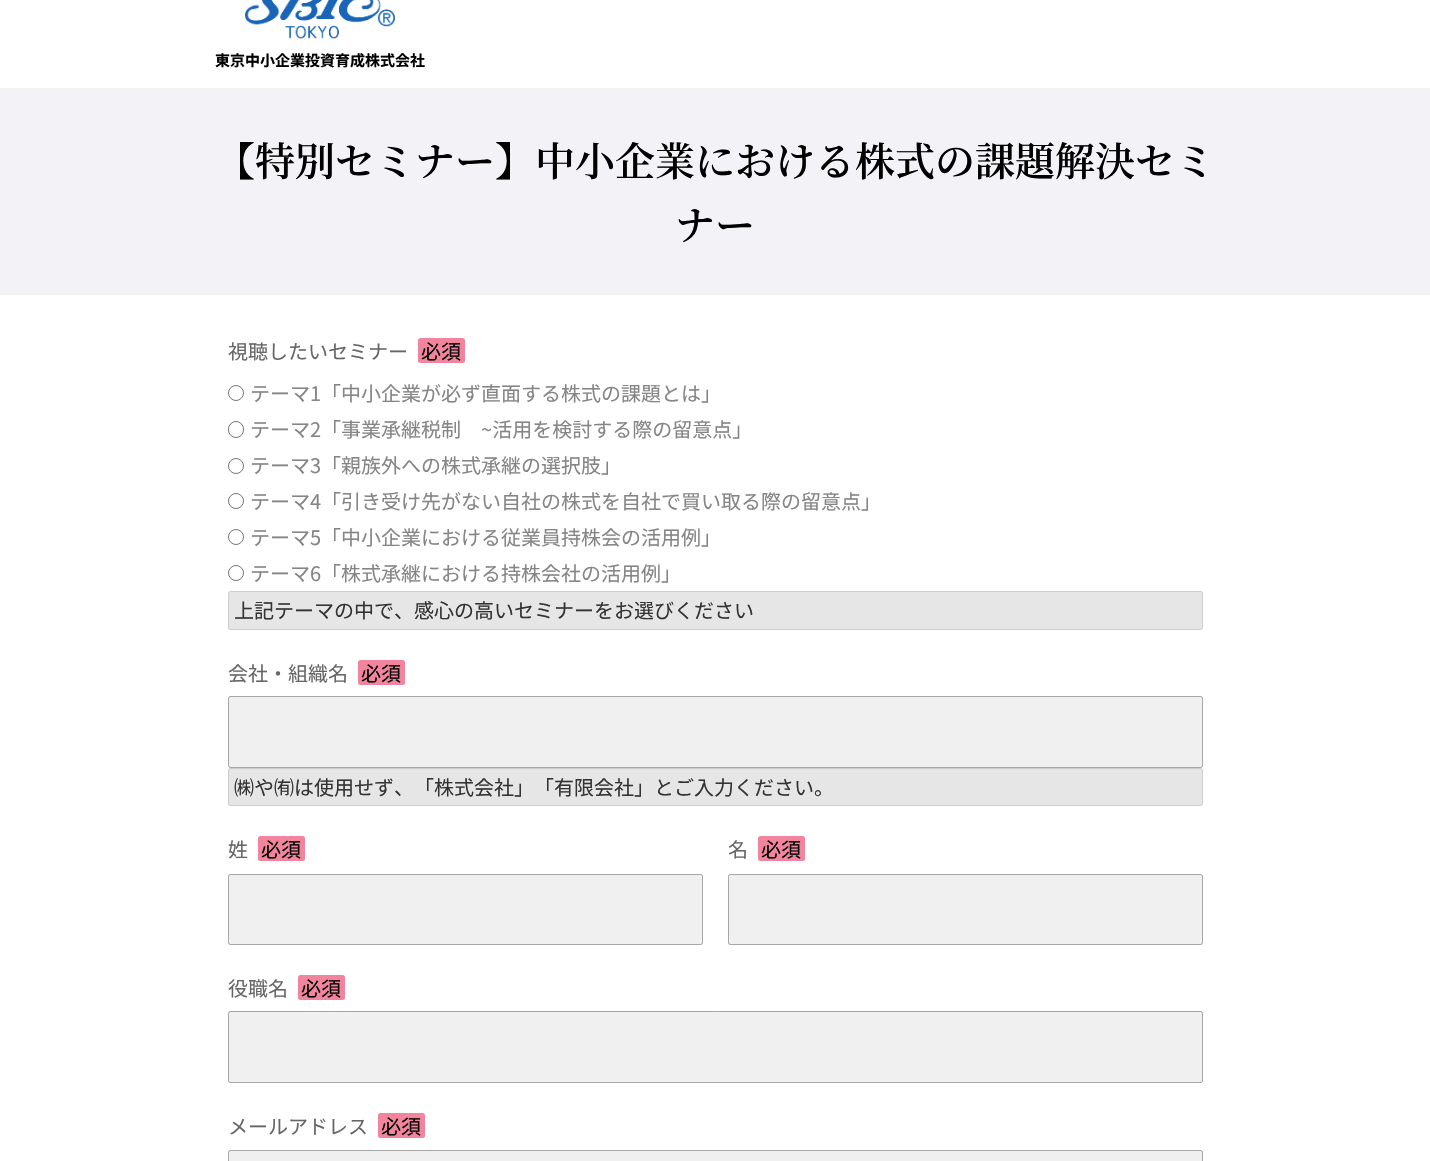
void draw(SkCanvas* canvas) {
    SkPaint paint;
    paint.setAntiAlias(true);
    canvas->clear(0xFFFFFFFF);
    canvas->drawImageRect(SkImages::DeferredFromEncodedData(SkData::MakeFromFileName("img1.png")), SkRect::MakeXYWH(245, 0, 150, 39), SkSamplingOptions());
    SkFont font1(fontMgr->matchFamilyStyle("Noto Sans JP", SkFontStyle::Bold()), 15);
    font1.setSubpixel(true);
    paint.setColor(0xFF000000);
    canvas->drawString("東京中小企業投資育成株式会社", 215, 66, font1, paint);
    paint.setColor(0xFFF2F2F7);
    canvas->drawRect(SkRect::MakeXYWH(0, 88, 1430, 207), paint);
    SkFont font2(fontMgr->matchFamilyStyle("Noto Serif JP", SkFontStyle(600, SkFontStyle::kNormal_Width, SkFontStyle::kUpright_Slant)), 40);
    font2.setSubpixel(true);
    paint.setColor(0xFF000000);
    canvas->drawString("【特別セミナー】中小企業における株式の課題解決セミ", 215, 176, font2, paint);
    canvas->drawString("ナー", 675, 240, font2, paint);
    SkFont font3(fontMgr->matchFamilyStyle("Noto Sans JP", SkFontStyle::Normal()), 20);
    font3.setSubpixel(true);
    paint.setColor(0xFF666666);
    canvas->drawString("視聴したいセミナー", 228, 359, font3, paint);
    paint.setColor(0xFFF2859D);
    canvas->drawRoundRect(SkRect::MakeXYWH(418, 338, 47, 25), 2.5f, 2.5f, paint);
    paint.setColor(0xFF000000);
    canvas->drawString("必須", 421, 359, font3, paint);
    paint.setStyle(SkPaint::kStroke_Style);
    paint.setStrokeWidth(1);
    paint.setColor(0xFF767676);
    canvas->drawCircle(236, 393, 7.5f, paint);
    paint.setStyle(SkPaint::kFill_Style);
    paint.setColor(0xFF858585);
    canvas->drawString("テーマ1「中小企業が必ず直面する株式の課題とは」", 250, 401, font3, paint);
    paint.setStyle(SkPaint::kStroke_Style);
    paint.setColor(0xFF767676);
    canvas->drawRoundRect(SkRect::MakeXYWH(228.5f, 421.5f, 15, 16), 7.5f, 7.5f, paint);
    paint.setStyle(SkPaint::kFill_Style);
    paint.setColor(0xFF858585);
    canvas->drawString("テーマ2「事業承継税制　~活用を検討する際の留意点」", 250, 437, font3, paint);
    paint.setStyle(SkPaint::kStroke_Style);
    paint.setColor(0xFF767676);
    canvas->drawCircle(236, 466, 7.5f, paint);
    paint.setStyle(SkPaint::kFill_Style);
    paint.setColor(0xFF858585);
    canvas->drawString("テーマ3「親族外への株式承継の選択肢」", 250, 473, font3, paint);
    paint.setStyle(SkPaint::kStroke_Style);
    paint.setColor(0xFF767676);
    canvas->drawCircle(236, 501, 7.5f, paint);
    paint.setStyle(SkPaint::kFill_Style);
    paint.setColor(0xFF858585);
    canvas->drawString("テーマ4「引き受け先がない自社の株式を自社で買い取る際の留意点」", 250, 509, font3, paint);
    paint.setStyle(SkPaint::kStroke_Style);
    paint.setColor(0xFF767676);
    canvas->drawCircle(236, 537, 7.5f, paint);
    paint.setStyle(SkPaint::kFill_Style);
    paint.setColor(0xFF858585);
    canvas->drawString("テーマ5「中小企業における従業員持株会の活用例」", 250, 545, font3, paint);
    paint.setStyle(SkPaint::kStroke_Style);
    paint.setColor(0xFF767676);
    canvas->drawCircle(236, 573, 7.5f, paint);
    paint.setStyle(SkPaint::kFill_Style);
    paint.setColor(0xFF858585);
    canvas->drawString("テーマ6「株式承継における持株会社の活用例」", 250, 581, font3, paint);
    paint.setColor(0xFFE6E6E6);
    canvas->drawRoundRect(SkRect::MakeXYWH(228, 591, 975, 39), 2.5f, 2.5f, paint);
    paint.setStyle(SkPaint::kStroke_Style);
    paint.setColor(0x1A000000);
    canvas->drawRoundRect(SkRect::MakeXYWH(228.5f, 591.5f, 974, 38), 2, 2, paint);
    paint.setStyle(SkPaint::kFill_Style);
    paint.setColor(0xFF333333);
    canvas->drawString("上記テーマの中で、感心の高いセミナーをお選びください", 234, 618, font3, paint);
    paint.setColor(0xFF666666);
    canvas->drawString("会社・組織名", 228, 681, font3, paint);
    paint.setColor(0xFFF2859D);
    canvas->drawRoundRect(SkRect::MakeXYWH(358, 660, 47, 25), 2.5f, 2.5f, paint);
    paint.setColor(0xFF000000);
    canvas->drawString("必須", 361, 681, font3, paint);
    paint.setColor(0xFFF0F0F0);
    canvas->drawRoundRect(SkRect::MakeXYWH(228, 696, 975, 72), 2.5f, 2.5f, paint);
    paint.setStyle(SkPaint::kStroke_Style);
    paint.setColor(0x4D000000);
    canvas->drawRoundRect(SkRect::MakeXYWH(228.5f, 696.5f, 974, 71), 2, 2, paint);
    paint.setStyle(SkPaint::kFill_Style);
    paint.setColor(0xFFE6E6E6);
    canvas->drawRoundRect(SkRect::MakeXYWH(228, 768, 975, 38), 2.5f, 2.5f, paint);
    paint.setStyle(SkPaint::kStroke_Style);
    paint.setColor(0x1A000000);
    canvas->drawRoundRect(SkRect::MakeXYWH(228.5f, 768.5f, 974, 37), 2, 2, paint);
    paint.setStyle(SkPaint::kFill_Style);
    paint.setColor(0xFF333333);
    canvas->drawString("㈱や㈲は使用せず、「株式会社」「有限会社」とご入力ください。", 234, 795, font3, paint);
    paint.setColor(0xFF666666);
    canvas->drawString("姓", 228, 857, font3, paint);
    paint.setColor(0xFFF2859D);
    canvas->drawRoundRect(SkRect::MakeXYWH(258, 836, 47, 25), 2.5f, 2.5f, paint);
    paint.setColor(0xFF000000);
    canvas->drawString("必須", 261, 857, font3, paint);
    paint.setColor(0xFFF0F0F0);
    canvas->drawRoundRect(SkRect::MakeXYWH(228, 874, 475, 71), 2.5f, 2.5f, paint);
    paint.setStyle(SkPaint::kStroke_Style);
    paint.setColor(0x4D000000);
    canvas->drawRoundRect(SkRect::MakeXYWH(228.5f, 874.5f, 474, 70), 2, 2, paint);
    paint.setStyle(SkPaint::kFill_Style);
    paint.setColor(0xFF666666);
    canvas->drawString("名", 728, 857, font3, paint);
    paint.setColor(0xFFF2859D);
    canvas->drawRoundRect(SkRect::MakeXYWH(758, 836, 47, 25), 2.5f, 2.5f, paint);
    paint.setColor(0xFF000000);
    canvas->drawString("必須", 761, 857, font3, paint);
    paint.setColor(0xFFF0F0F0);
    canvas->drawRoundRect(SkRect::MakeXYWH(728, 874, 475, 71), 2.5f, 2.5f, paint);
    paint.setStyle(SkPaint::kStroke_Style);
    paint.setColor(0x4D000000);
    canvas->drawRoundRect(SkRect::MakeXYWH(728.5f, 874.5f, 474, 70), 2, 2, paint);
    paint.setStyle(SkPaint::kFill_Style);
    paint.setColor(0xFF666666);
    canvas->drawString("役職名", 228, 996, font3, paint);
    paint.setColor(0xFFF2859D);
    canvas->drawRoundRect(SkRect::MakeXYWH(298, 975, 47, 25), 2.5f, 2.5f, paint);
    paint.setColor(0xFF000000);
    canvas->drawString("必須", 301, 996, font3, paint);
    paint.setColor(0xFFF0F0F0);
    canvas->drawRoundRect(SkRect::MakeXYWH(228, 1011, 975, 72), 2.5f, 2.5f, paint);
    paint.setStyle(SkPaint::kStroke_Style);
    paint.setColor(0x4D000000);
    canvas->drawRoundRect(SkRect::MakeXYWH(228.5f, 1011.5f, 974, 71), 2, 2, paint);
    paint.setStyle(SkPaint::kFill_Style);
    paint.setColor(0xFF666666);
    canvas->drawString("メールアドレス", 228, 1134, font3, paint);
    paint.setColor(0xFFF2859D);
    canvas->drawRoundRect(SkRect::MakeXYWH(378, 1113, 47, 25), 2.5f, 2.5f, paint);
    paint.setColor(0xFF000000);
    canvas->drawString("必須", 381, 1134, font3, paint);
    paint.setColor(0xFFF0F0F0);
    canvas->drawRoundRect(SkRect::MakeXYWH(228, 1150, 975, 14), 2.5f, 2.5f, paint);
    paint.setStyle(SkPaint::kStroke_Style);
    paint.setColor(0x4D000000);
    canvas->drawRoundRect(SkRect::MakeXYWH(228.5f, 1150.5f, 974, 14), 2, 2, paint);
}
